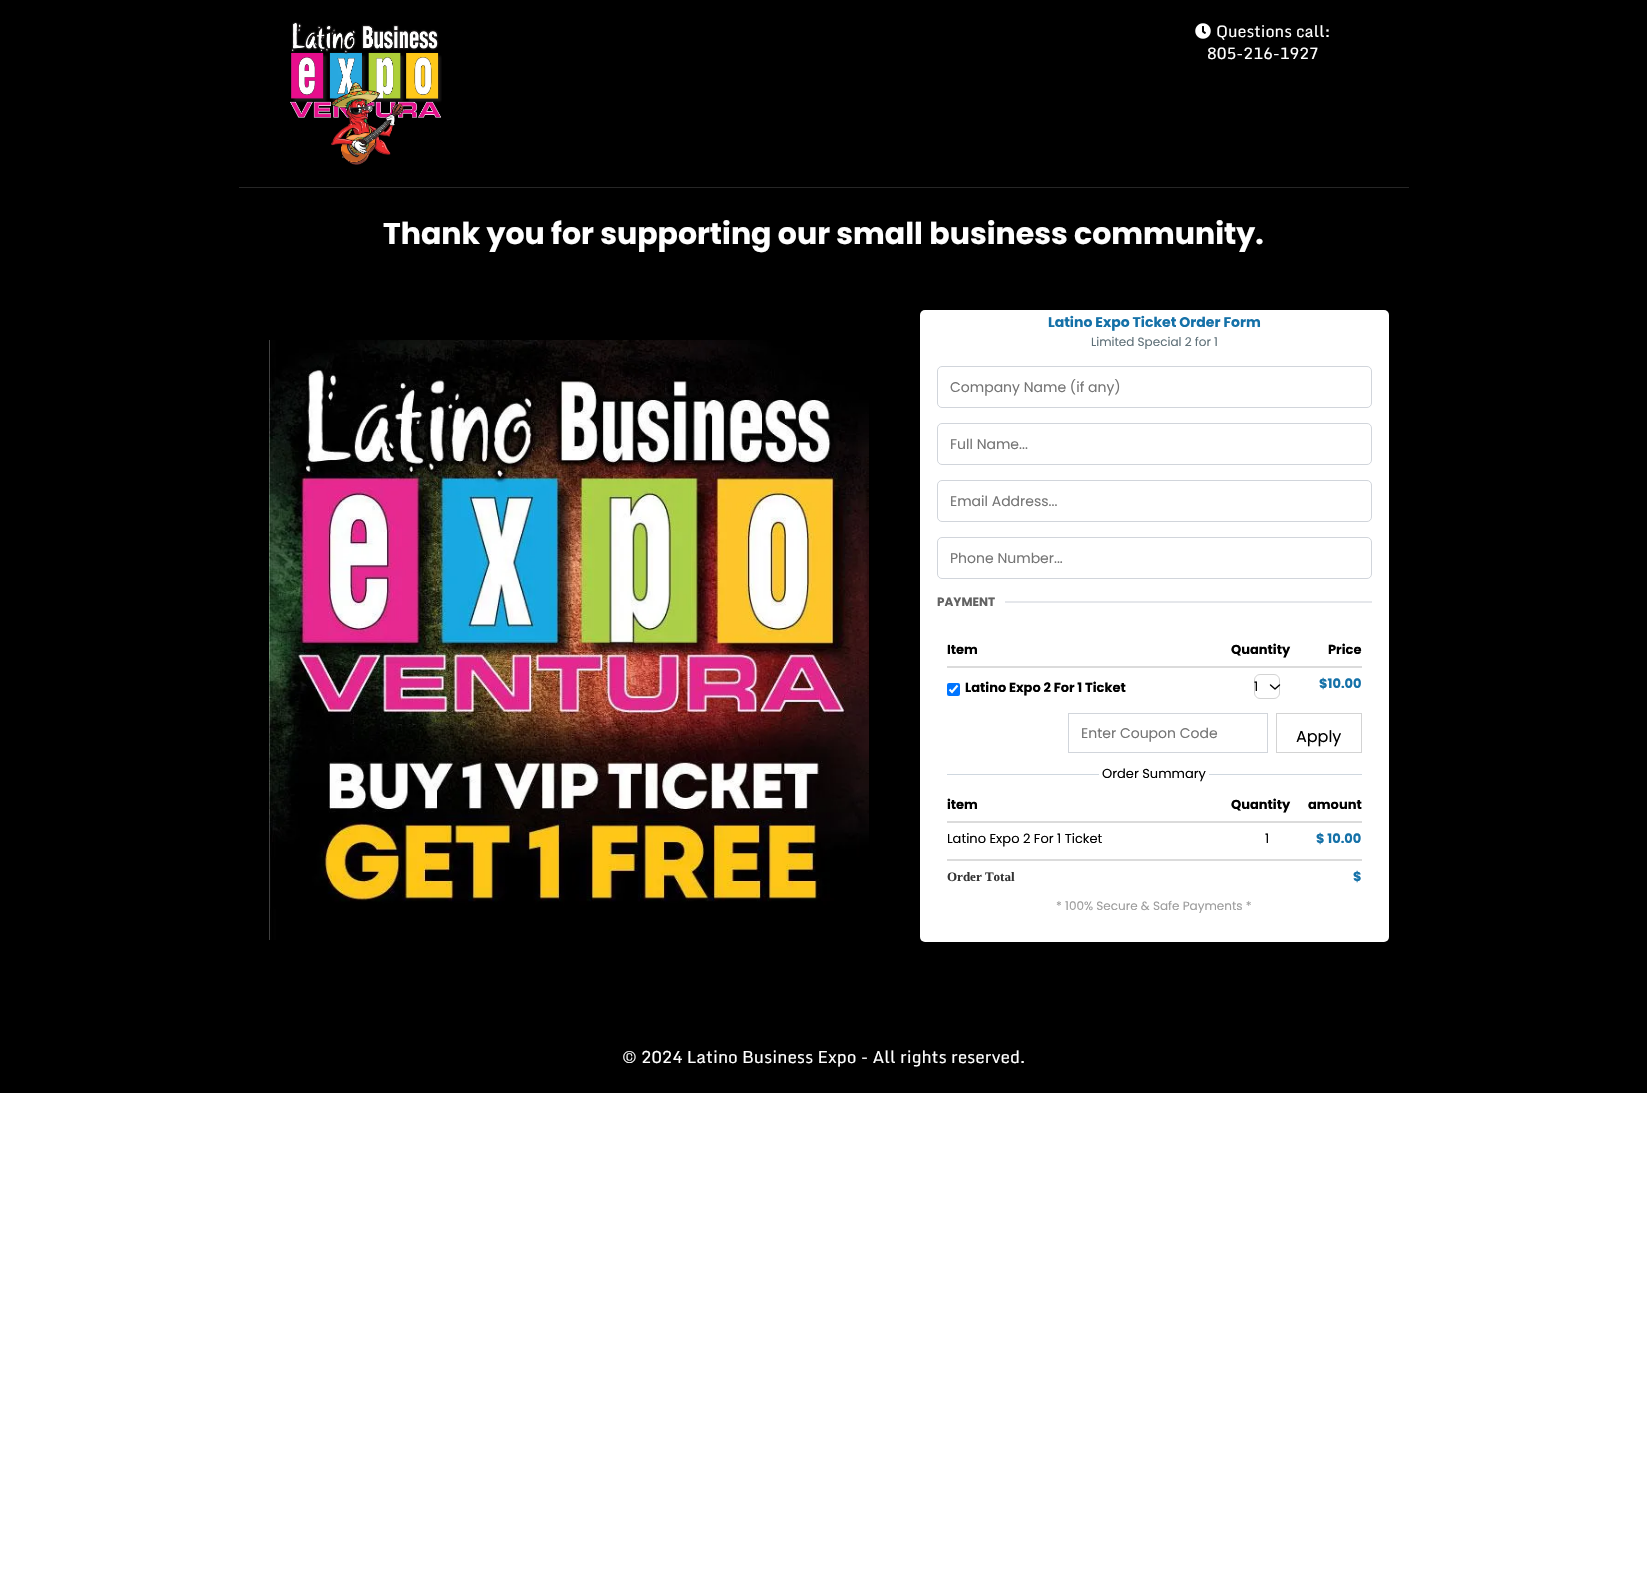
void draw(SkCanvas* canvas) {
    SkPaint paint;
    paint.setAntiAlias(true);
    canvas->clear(0xFFFFFFFF);
    paint.setColor(0xFF000000);
    canvas->drawRect(SkRect::MakeXYWH(0, 0, 1647, 1093), paint);
    paint.setColor(0xFF262626);
    canvas->drawRect(SkRect::MakeXYWH(239, 187, 1170, 1), paint);
    canvas->drawImageRect(SkImages::DeferredFromEncodedData(SkData::MakeFromFileName("img1.png")), SkRect::MakeXYWH(290, 22, 152, 143), SkSamplingOptions());
    canvas->drawImageRect(SkImages::DeferredFromEncodedData(SkData::MakeFromFileName("img2.png")), SkRect::MakeXYWH(1195, 23, 16, 16), SkSamplingOptions());
    SkFont font1(fontMgr->matchFamilyStyle("Monda", SkFontStyle::Normal()), 16);
    font1.setSubpixel(true);
    paint.setColor(0xFFFFFFFF);
    canvas->drawString("Questions call:", 1216, 37, font1, paint);
    canvas->drawString("805-216-1927", 1207, 59, font1, paint);
    SkFont font2(fontMgr->matchFamilyStyle("Poppins", SkFontStyle::Bold()), 30);
    font2.setSubpixel(true);
    canvas->drawString("Thank you for supporting our small business community.", 383, 244, font2, paint);
    canvas->drawImageRect(SkImages::DeferredFromEncodedData(SkData::MakeFromFileName("img3.png")), SkRect::MakeXYWH(269, 340, 600, 600), SkSamplingOptions());
    canvas->drawRoundRect(SkRect::MakeXYWH(920, 310, 469, 632), 5, 5, paint);
    SkFont font3(fontMgr->matchFamilyStyle("Poppins", SkFontStyle::Bold()), 14);
    font3.setSubpixel(true);
    paint.setColor(0xFF1571A8);
    canvas->drawString("Latino Expo Ticket Order Form", 1048, 327, font3, paint);
    SkFont font4(fontMgr->matchFamilyStyle("Poppins", SkFontStyle::Normal()), 12);
    font4.setSubpixel(true);
    paint.setColor(0xFF607179);
    canvas->drawString("Limited Special 2 for 1", 1091, 346, font4, paint);
    paint.setStyle(SkPaint::kStroke_Style);
    paint.setStrokeWidth(1);
    paint.setColor(0xFFD1D5DB);
    canvas->drawRoundRect(SkRect::MakeXYWH(937.5f, 366.5f, 434, 41), 4.5f, 4.5f, paint);
    SkFont font5(fontMgr->matchFamilyStyle("Poppins", SkFontStyle::Normal()), 14);
    font5.setSubpixel(true);
    paint.setStyle(SkPaint::kFill_Style);
    paint.setColor(0xFF757575);
    canvas->drawString("Company Name (if any)", 950, 392, font5, paint);
    paint.setStyle(SkPaint::kStroke_Style);
    paint.setColor(0xFFD1D5DB);
    canvas->drawRoundRect(SkRect::MakeXYWH(937.5f, 423.5f, 434, 41), 4.5f, 4.5f, paint);
    paint.setStyle(SkPaint::kFill_Style);
    paint.setColor(0xFF757575);
    canvas->drawString("Full Name...", 950, 449, font5, paint);
    paint.setStyle(SkPaint::kStroke_Style);
    paint.setColor(0xFFD1D5DB);
    canvas->drawRoundRect(SkRect::MakeXYWH(937.5f, 480.5f, 434, 41), 4.5f, 4.5f, paint);
    paint.setStyle(SkPaint::kFill_Style);
    paint.setColor(0xFF757575);
    canvas->drawString("Email Address...", 950, 506, font5, paint);
    paint.setStyle(SkPaint::kStroke_Style);
    paint.setColor(0xFFD1D5DB);
    canvas->drawRoundRect(SkRect::MakeXYWH(937.5f, 537.5f, 434, 41), 4.5f, 4.5f, paint);
    paint.setStyle(SkPaint::kFill_Style);
    paint.setColor(0xFF757575);
    canvas->drawString("Phone Number...", 950, 563, font5, paint);
    SkFont font6(fontMgr->matchFamilyStyle("Poppins", SkFontStyle::Bold()), 12);
    font6.setSubpixel(true);
    paint.setColor(0xFF626262);
    canvas->drawString("PAYMENT", 937, 606, font6, paint);
    paint.setColor(0xFFE5E7EB);
    canvas->drawRect(SkRect::MakeXYWH(1005, 601, 367, 2), paint);
    SkFont font7(fontMgr->matchFamilyStyle("Poppins", SkFontStyle::Bold()), 13);
    font7.setSubpixel(true);
    paint.setColor(0xFF000000);
    canvas->drawString("Item", 947, 654, font7, paint);
    canvas->drawString("Quantity", 1231, 654, font7, paint);
    canvas->drawString("Price", 1328, 654, font7, paint);
    paint.setColor(0xFFDBDBDB);
    canvas->drawRect(SkRect::MakeXYWH(947, 666, 415, 2), paint);
    paint.setColor(0xFF0075FF);
    canvas->drawRoundRect(SkRect::MakeXYWH(947, 683, 13, 13), 2, 2, paint);
    paint.setStyle(SkPaint::kStroke_Style);
    paint.setStrokeWidth(2.1f);
    paint.setColor(0xFFFFFFFF);
    canvas->drawPath(SkPathBuilder().moveTo(949.5f, 689.5f).lineTo(952, 692).lineTo(957.5f, 685.5f).detach(), paint);
    paint.setStyle(SkPaint::kFill_Style);
    paint.setColor(0xFF000000);
    canvas->drawString("Latino Expo 2 For 1 Ticket", 965, 692, font7, paint);
    paint.setStyle(SkPaint::kStroke_Style);
    paint.setStrokeWidth(1);
    paint.setColor(0xFFD3D3D3);
    canvas->drawRoundRect(SkRect::MakeXYWH(1254.5f, 674.5f, 25, 24), 5.5f, 5.5f, paint);
    SkFont font8(fontMgr->matchFamilyStyle("Poppins", SkFontStyle::Normal()), 13);
    font8.setSubpixel(true);
    paint.setStyle(SkPaint::kFill_Style);
    paint.setColor(0xFF000000);
    canvas->drawString("1", 1254, 691, font8, paint);
    paint.setStyle(SkPaint::kStroke_Style);
    paint.setStrokeWidth(1.4f);
    paint.setStrokeCap(SkPaint::kRound_Cap);
    paint.setStrokeJoin(SkPaint::kRound_Join);
    canvas->drawPath(SkPathBuilder().moveTo(1270.5f, 685).lineTo(1275, 689).lineTo(1279.5f, 685).detach(), paint);
    paint.setStyle(SkPaint::kFill_Style);
    paint.setColor(0xFF1571A8);
    canvas->drawString("$10.00", 1319, 688, font7, paint);
    paint.setStyle(SkPaint::kStroke_Style);
    paint.setStrokeWidth(1);
    paint.setStrokeCap(SkPaint::kButt_Cap);
    paint.setStrokeJoin(SkPaint::kMiter_Join);
    paint.setColor(0xFFD1D5DB);
    canvas->drawRect(SkRect::MakeXYWH(1068.5f, 713.5f, 199, 39), paint);
    paint.setStyle(SkPaint::kFill_Style);
    paint.setColor(0xFF757575);
    canvas->drawString("Enter Coupon Code", 1081, 738, font5, paint);
    paint.setStyle(SkPaint::kStroke_Style);
    paint.setColor(0xFFD3D3D3);
    canvas->drawRect(SkRect::MakeXYWH(1276.5f, 713.5f, 85, 39), paint);
    SkFont font9(fontMgr->matchFamilyStyle("Poppins", SkFontStyle::Normal()), 16);
    font9.setSubpixel(true);
    paint.setStyle(SkPaint::kFill_Style);
    paint.setColor(0xFF000000);
    canvas->drawString("Apply", 1296, 742, font9, paint);
    paint.setColor(0xFFCFD7DF);
    canvas->drawRect(SkRect::MakeXYWH(947, 774, 152, 1), paint);
    paint.setColor(0xFF000000);
    canvas->drawString("Order Summary", 1102, 778, font8, paint);
    paint.setColor(0xFFCFD7DF);
    canvas->drawRect(SkRect::MakeXYWH(1209, 774, 153, 1), paint);
    paint.setColor(0xFF000000);
    canvas->drawString("item", 947, 809, font7, paint);
    canvas->drawString("Quantity", 1231, 809, font7, paint);
    canvas->drawString("amount", 1308, 809, font7, paint);
    paint.setColor(0xFFDBDBDB);
    canvas->drawRect(SkRect::MakeXYWH(947, 821, 415, 2), paint);
    paint.setColor(0xFF000000);
    canvas->drawString("Latino Expo 2 For 1 Ticket", 947, 843, font8, paint);
    canvas->drawString("1", 1265, 843, font8, paint);
    paint.setColor(0xFF1571A8);
    canvas->drawString("$ 10.00", 1316, 843, font7, paint);
    paint.setColor(0xFFDBDBDB);
    canvas->drawRect(SkRect::MakeXYWH(947, 859, 415, 2), paint);
    SkFont font10(fontMgr->matchFamilyStyle("Liberation Serif", SkFontStyle::Bold()), 13);
    font10.setSubpixel(true);
    paint.setColor(0xFF333333);
    canvas->drawString("Order Total", 947, 881, font10, paint);
    paint.setColor(0xFF1571A8);
    canvas->drawString("$", 1353, 881, font7, paint);
    paint.setColor(0xFF9C9C9C);
    canvas->drawString("* 100% Secure & Safe Payments *", 1056, 910, font4, paint);
    SkFont font11(fontMgr->matchFamilyStyle("Monda", SkFontStyle::Normal()), 17);
    font11.setSubpixel(true);
    paint.setColor(0xFFFFFFFF);
    canvas->drawString("© 2024 Latino Business Expo - All rights reserved.", 622, 1063, font11, paint);
}
